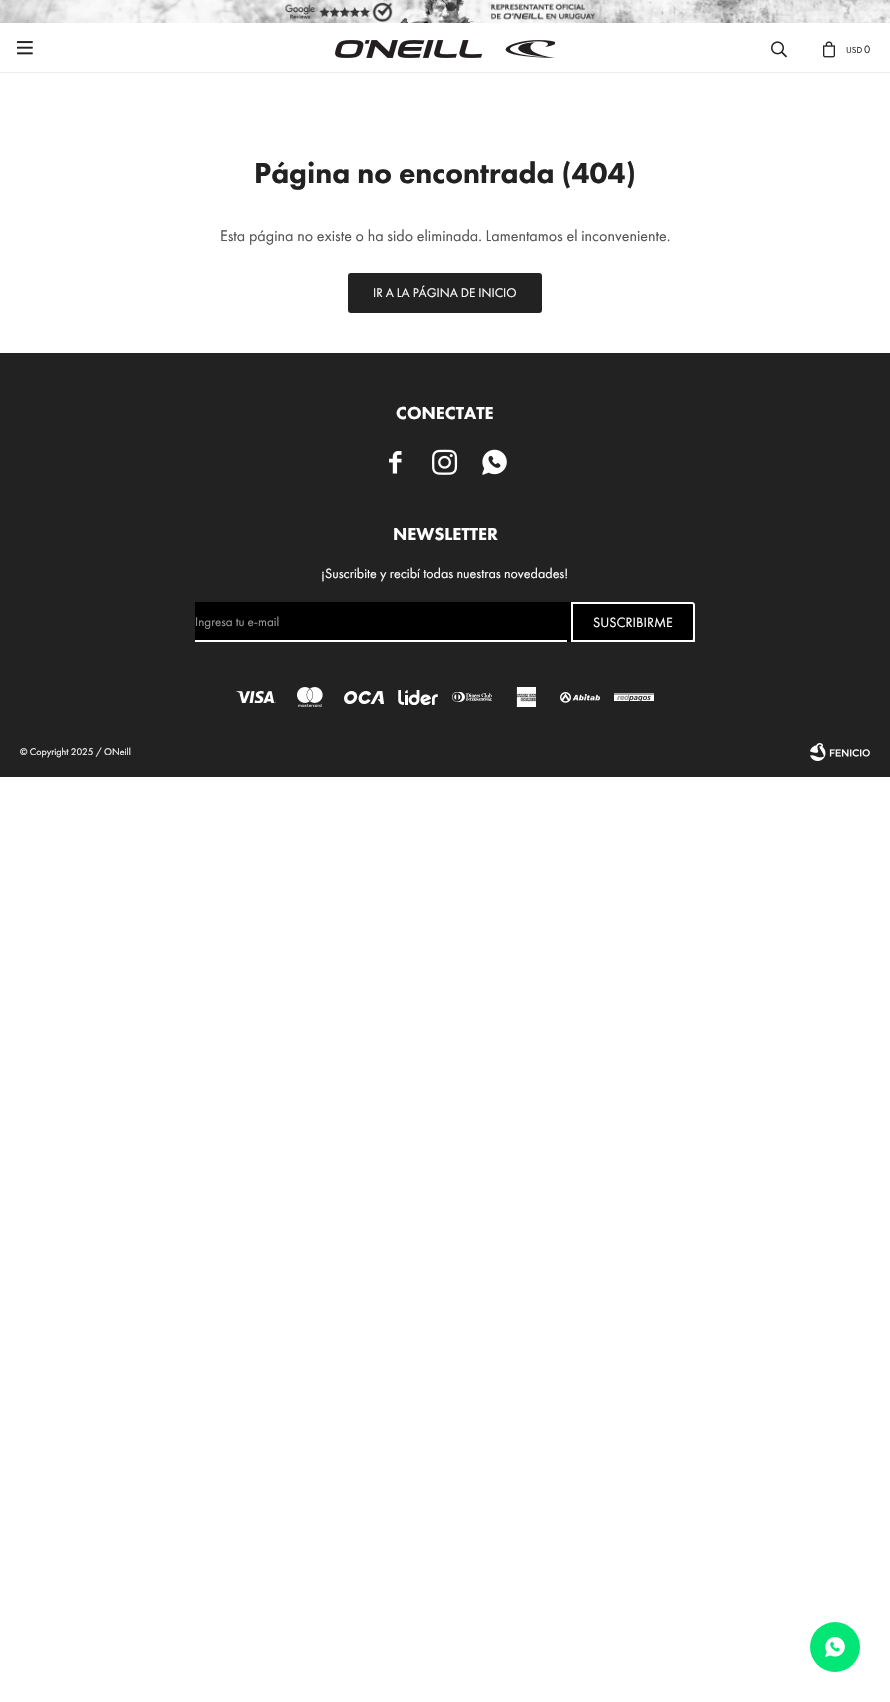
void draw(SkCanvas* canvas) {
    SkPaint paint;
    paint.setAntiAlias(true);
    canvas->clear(0xFFFFFFFF);
    canvas->drawImageRect(SkImages::DeferredFromEncodedData(SkData::MakeFromFileName("img1.png")), SkRect::MakeXYWH(0, 0, 890, 23), SkSamplingOptions());
    canvas->drawImageRect(SkImages::DeferredFromEncodedData(SkData::MakeFromFileName("img2.png")), SkRect::MakeXYWH(17, 41, 16, 14), SkSamplingOptions());
    canvas->drawImageRect(SkImages::DeferredFromEncodedData(SkData::MakeFromFileName("img3.png")), SkRect::MakeXYWH(335, 40, 220, 18), SkSamplingOptions());
    canvas->drawImageRect(SkImages::DeferredFromEncodedData(SkData::MakeFromFileName("img4.png")), SkRect::MakeXYWH(771, 41, 16, 17), SkSamplingOptions());
    canvas->drawImageRect(SkImages::DeferredFromEncodedData(SkData::MakeFromFileName("img5.png")), SkRect::MakeXYWH(823, 41, 12, 17), SkSamplingOptions());
    SkFont font1(fontMgr->matchFamilyStyle("Futura PT", SkFontStyle::Normal()), 9);
    font1.setSubpixel(true);
    paint.setColor(0xFF222222);
    canvas->drawString("USD", 846, 53, font1, paint);
    SkFont font2(fontMgr->matchFamilyStyle("Futura PT", SkFontStyle::Normal()), 11);
    font2.setSubpixel(true);
    canvas->drawString("0", 864, 53, font2, paint);
    paint.setColor(0xFFEDEDED);
    canvas->drawRect(SkRect::MakeXYWH(0, 72, 890, 1), paint);
    SkFont font3(fontMgr->matchFamilyStyle("Futura PT", SkFontStyle(900, SkFontStyle::kNormal_Width, SkFontStyle::kUpright_Slant)), 30);
    font3.setSubpixel(true);
    paint.setColor(0xFF222222);
    canvas->drawString("Página no encontrada (404)", 254, 183, font3, paint);
    SkFont font4(fontMgr->matchFamilyStyle("Futura PT", SkFontStyle::Normal()), 16);
    font4.setSubpixel(true);
    paint.setColor(0xFF555555);
    canvas->drawString("Esta página no existe o ha sido eliminada. Lamentamos el inconveniente.", 220, 241, font4, paint);
    paint.setColor(0xFF222222);
    canvas->drawRoundRect(SkRect::MakeXYWH(348, 273, 194, 40), 3, 3, paint);
    SkFont font5(fontMgr->matchFamilyStyle("Futura PT", SkFontStyle::Normal()), 13);
    font5.setSubpixel(true);
    paint.setColor(0xFFFFFFFF);
    canvas->drawString("IR A LA PÁGINA DE INICIO", 373, 297, font5, paint);
    paint.setColor(0xFF222222);
    canvas->drawRect(SkRect::MakeXYWH(0, 353, 890, 424), paint);
    SkFont font6(fontMgr->matchFamilyStyle("Futura PT", SkFontStyle(900, SkFontStyle::kNormal_Width, SkFontStyle::kUpright_Slant)), 18);
    font6.setSubpixel(true);
    paint.setColor(0xFFFFFFFF);
    canvas->drawString("CONECTATE", 396, 419, font6, paint);
    canvas->drawImageRect(SkImages::DeferredFromEncodedData(SkData::MakeFromFileName("img6.png")), SkRect::MakeXYWH(389, 451, 13, 23), SkSamplingOptions());
    canvas->drawImageRect(SkImages::DeferredFromEncodedData(SkData::MakeFromFileName("img7.png")), SkRect::MakeXYWH(432, 449, 26, 26), SkSamplingOptions());
    canvas->drawImageRect(SkImages::DeferredFromEncodedData(SkData::MakeFromFileName("img8.png")), SkRect::MakeXYWH(482, 449, 25, 26), SkSamplingOptions());
    canvas->drawString("NEWSLETTER", 393, 540, font6, paint);
    SkFont font7(fontMgr->matchFamilyStyle("Futura PT", SkFontStyle::Normal()), 14);
    font7.setSubpixel(true);
    canvas->drawString("¡Suscribite y recibí todas nuestras novedades!", 321, 578, font7, paint);
    paint.setColor(0xFF000000);
    canvas->drawRect(SkRect::MakeXYWH(195, 602, 500, 38), paint);
    paint.setColor(0xFFFFFFFF);
    canvas->drawRect(SkRect::MakeXYWH(195, 640, 500, 2), paint);
    paint.setColor(0xFF999999);
    canvas->drawString("Ingresa tu e-mail", 195, 626, font5, paint);
    paint.setColor(0xFF000000);
    canvas->drawPath(SkPathBuilder().moveTo(572, 603).lineTo(692, 603).cubicTo(693, 603, 694, 604, 694, 605).lineTo(694, 639).cubicTo(694, 640, 693, 641, 692, 641).lineTo(572, 641).close().detach(), paint);
    paint.setStyle(SkPaint::kStroke_Style);
    paint.setStrokeWidth(2);
    paint.setColor(0xFFFFFFFF);
    canvas->drawPath(SkPathBuilder().moveTo(572, 603).lineTo(692, 603).cubicTo(693, 603, 694, 604, 694, 605).lineTo(694, 639).cubicTo(694, 640, 693, 641, 692, 641).lineTo(572, 641).close().detach(), paint);
    paint.setStyle(SkPaint::kFill_Style);
    canvas->drawString("SUSCRIBIRME", 593, 627, font7, paint);
    paint.setColor(0xFF000000);
    canvas->drawRect(SkRect::MakeXYWH(567, 640, 4, 2), paint);
    canvas->drawImageRect(SkImages::DeferredFromEncodedData(SkData::MakeFromFileName("img9.png")), SkRect::MakeXYWH(236, 691, 40, 12), SkSamplingOptions());
    canvas->drawImageRect(SkImages::DeferredFromEncodedData(SkData::MakeFromFileName("img10.png")), SkRect::MakeXYWH(297, 687, 26, 20), SkSamplingOptions());
    canvas->drawImageRect(SkImages::DeferredFromEncodedData(SkData::MakeFromFileName("img11.png")), SkRect::MakeXYWH(344, 691, 40, 13), SkSamplingOptions());
    canvas->drawImageRect(SkImages::DeferredFromEncodedData(SkData::MakeFromFileName("img12.png")), SkRect::MakeXYWH(398, 690, 40, 15), SkSamplingOptions());
    canvas->drawImageRect(SkImages::DeferredFromEncodedData(SkData::MakeFromFileName("img13.png")), SkRect::MakeXYWH(452, 692, 40, 10), SkSamplingOptions());
    canvas->drawImageRect(SkImages::DeferredFromEncodedData(SkData::MakeFromFileName("img14.png")), SkRect::MakeXYWH(516, 687, 20, 20), SkSamplingOptions());
    canvas->drawImageRect(SkImages::DeferredFromEncodedData(SkData::MakeFromFileName("img15.png")), SkRect::MakeXYWH(560, 692, 40, 11), SkSamplingOptions());
    canvas->drawImageRect(SkImages::DeferredFromEncodedData(SkData::MakeFromFileName("img16.png")), SkRect::MakeXYWH(614, 693, 40, 8), SkSamplingOptions());
    SkFont font8(fontMgr->matchFamilyStyle("Futura PT", SkFontStyle::Normal()), 10);
    font8.setSubpixel(true);
    paint.setColor(0xFFFFFFFF);
    canvas->drawString("© Copyright 2025 / ONeill", 20, 755, font8, paint);
    canvas->drawImageRect(SkImages::DeferredFromEncodedData(SkData::MakeFromFileName("img17.png")), SkRect::MakeXYWH(810, 743, 60, 18), SkSamplingOptions());
    paint.setColor(0xFF01E675);
    canvas->drawCircle(835, 1647, 25, paint);
    canvas->drawImageRect(SkImages::DeferredFromEncodedData(SkData::MakeFromFileName("img18.png")), SkRect::MakeXYWH(825, 1637, 20, 20), SkSamplingOptions());
}
